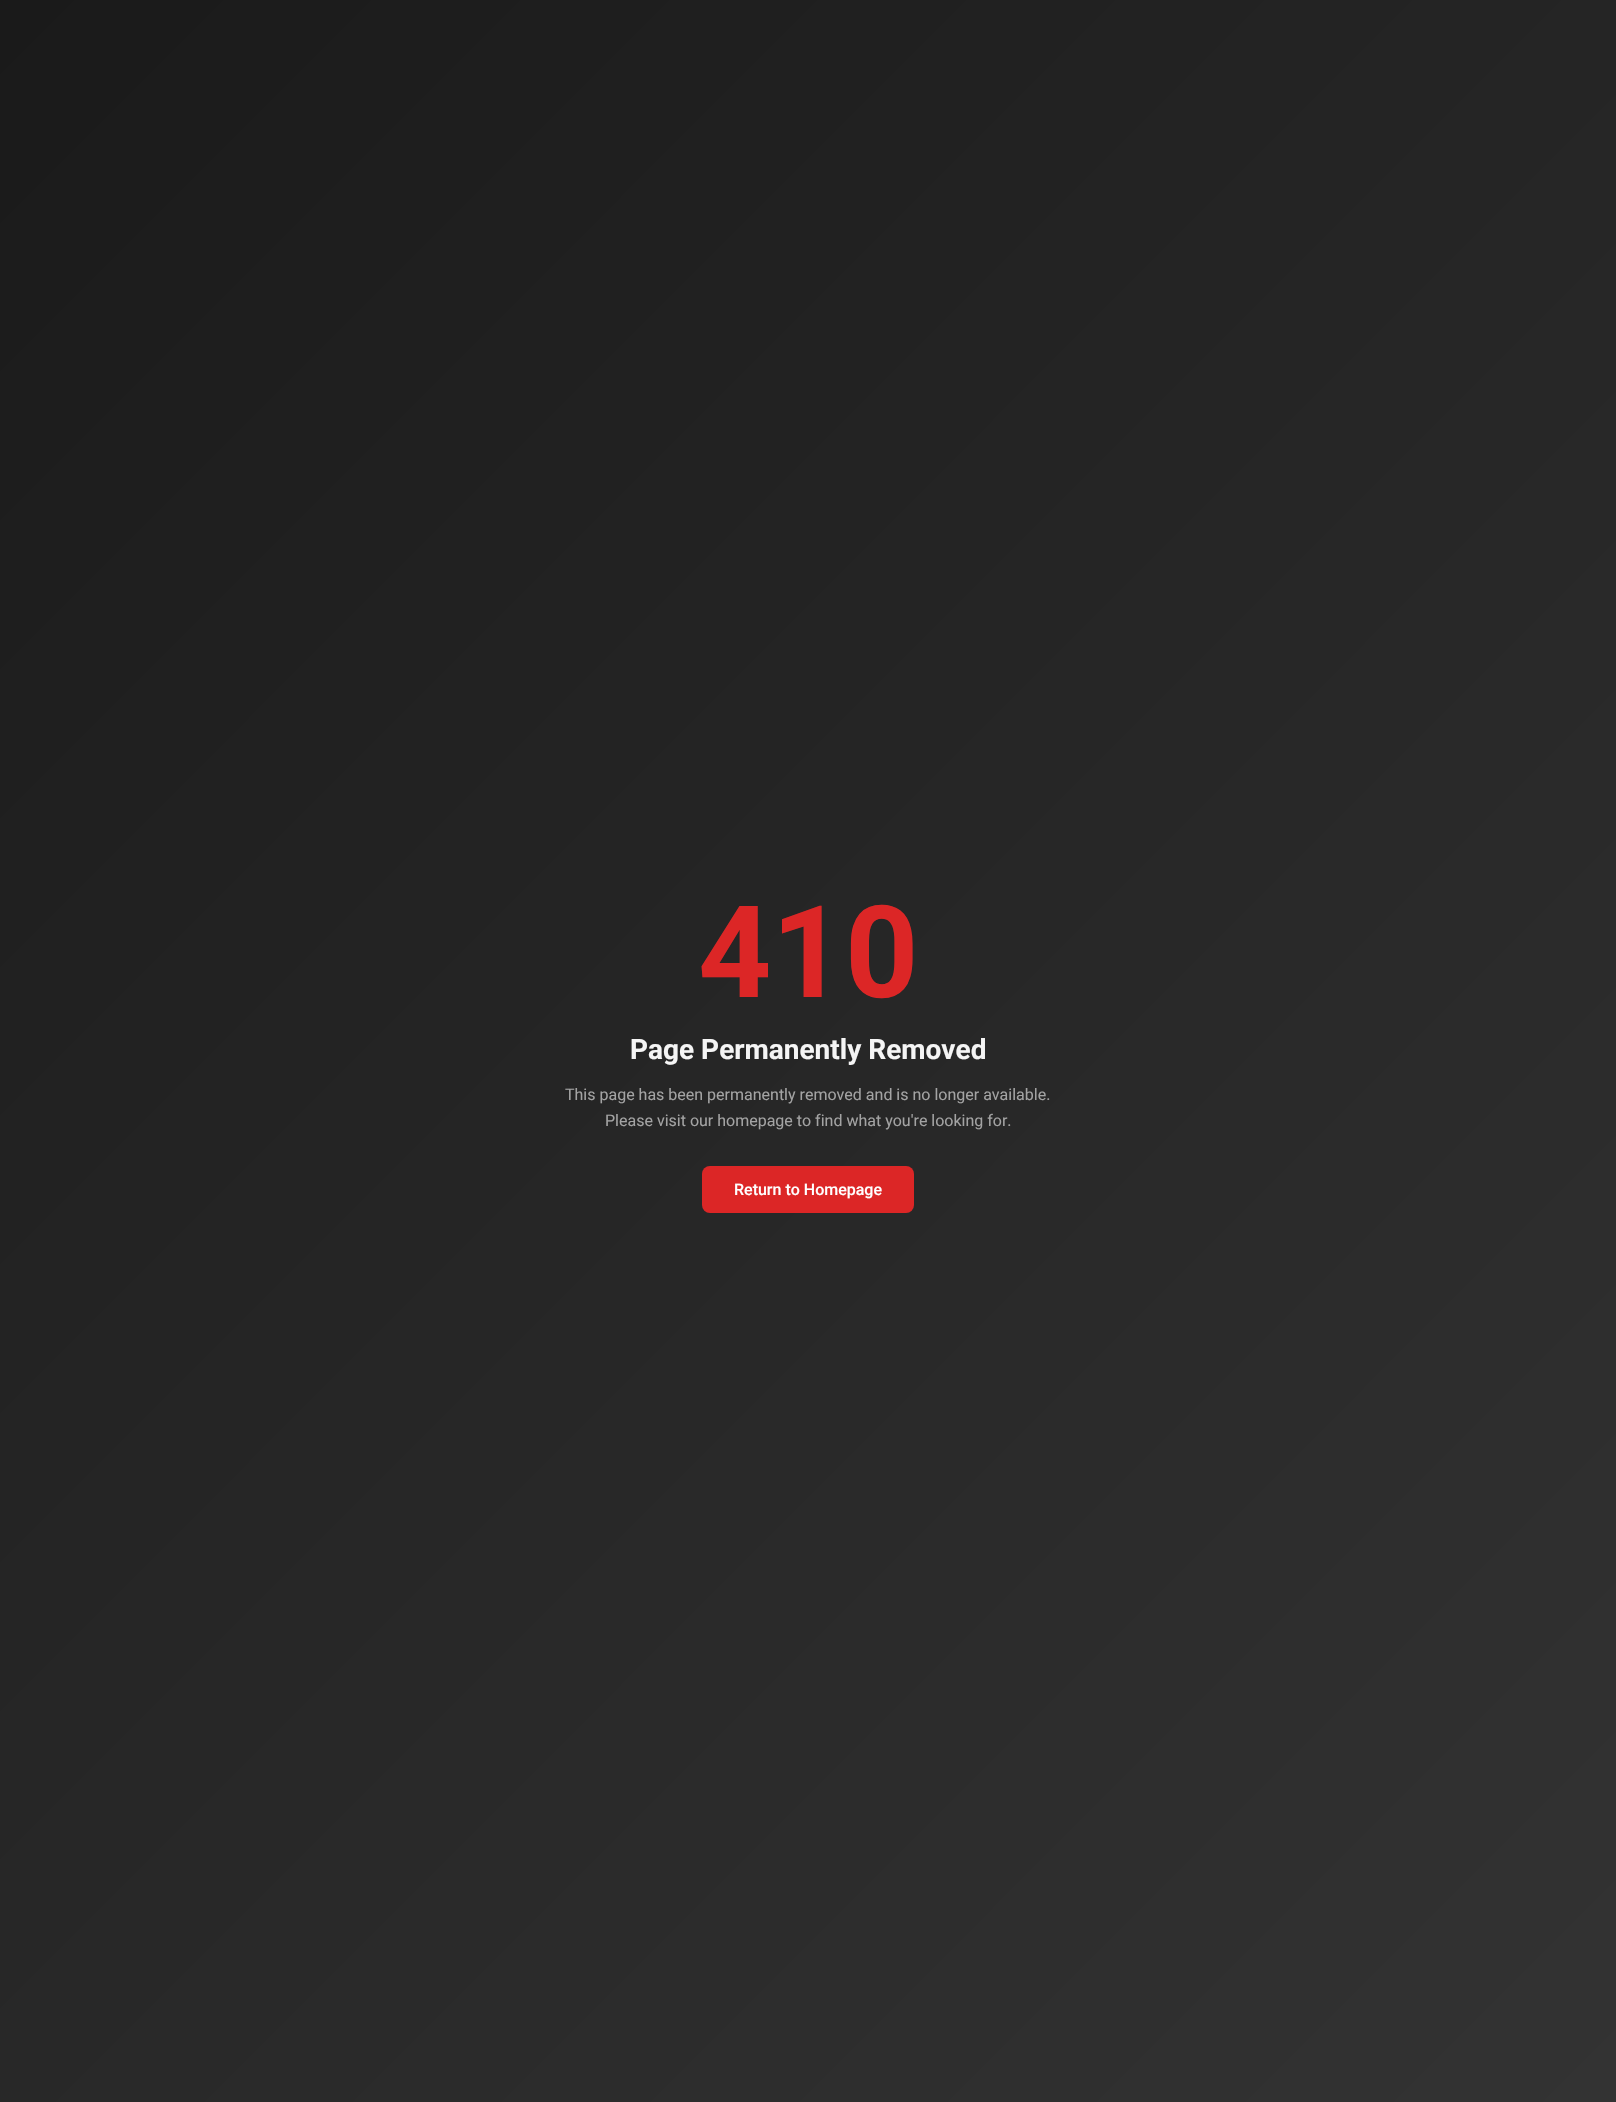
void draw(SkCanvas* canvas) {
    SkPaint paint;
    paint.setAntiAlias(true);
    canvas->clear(0xFFFFFFFF);
    {
        const SkColor colors[] = {0xFF1A1A1A, 0xFF333333};
        const float stops[] = {0, 1};
        const SkPoint ends[] = {{-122, 122}, {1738, 1981}};
        paint.setShader(SkGradientShader::MakeLinear(ends, colors, stops, 2, SkTileMode::kClamp));
        paint.setAlpha(255);
    }
    canvas->drawRect(SkRect::MakeXYWH(0, 0, 1616, 2102), paint);
    SkFont font1(fontMgr->matchFamilyStyle("Roboto", SkFontStyle::Bold()), 128);
    font1.setSubpixel(true);
    paint.setShader(nullptr);
    paint.setColor(0xFFDC2626);
    canvas->drawString("410", 698, 997, font1, paint);
    SkFont font2(fontMgr->matchFamilyStyle("Roboto", SkFontStyle::Bold()), 28);
    font2.setSubpixel(true);
    paint.setColor(0xFFF5F5F5);
    canvas->drawString("Page Permanently Removed", 630, 1059, font2, paint);
    SkFont font3(fontMgr->matchFamilyStyle("Roboto", SkFontStyle::Normal()), 16);
    font3.setSubpixel(true);
    paint.setColor(0xFFA3A3A3);
    canvas->drawString("This page has been permanently removed and is no longer available.", 565, 1100, font3, paint);
    canvas->drawString("Please visit our homepage to find what you're looking for.", 605, 1126, font3, paint);
    paint.setColor(0xFFDC2626);
    canvas->drawRoundRect(SkRect::MakeXYWH(702, 1166, 212, 47), 8, 8, paint);
    SkFont font4(fontMgr->matchFamilyStyle("Roboto", SkFontStyle(500, SkFontStyle::kNormal_Width, SkFontStyle::kUpright_Slant)), 16);
    font4.setSubpixel(true);
    paint.setColor(0xFFFFFFFF);
    canvas->drawString("Return to Homepage", 734, 1195, font4, paint);
}
